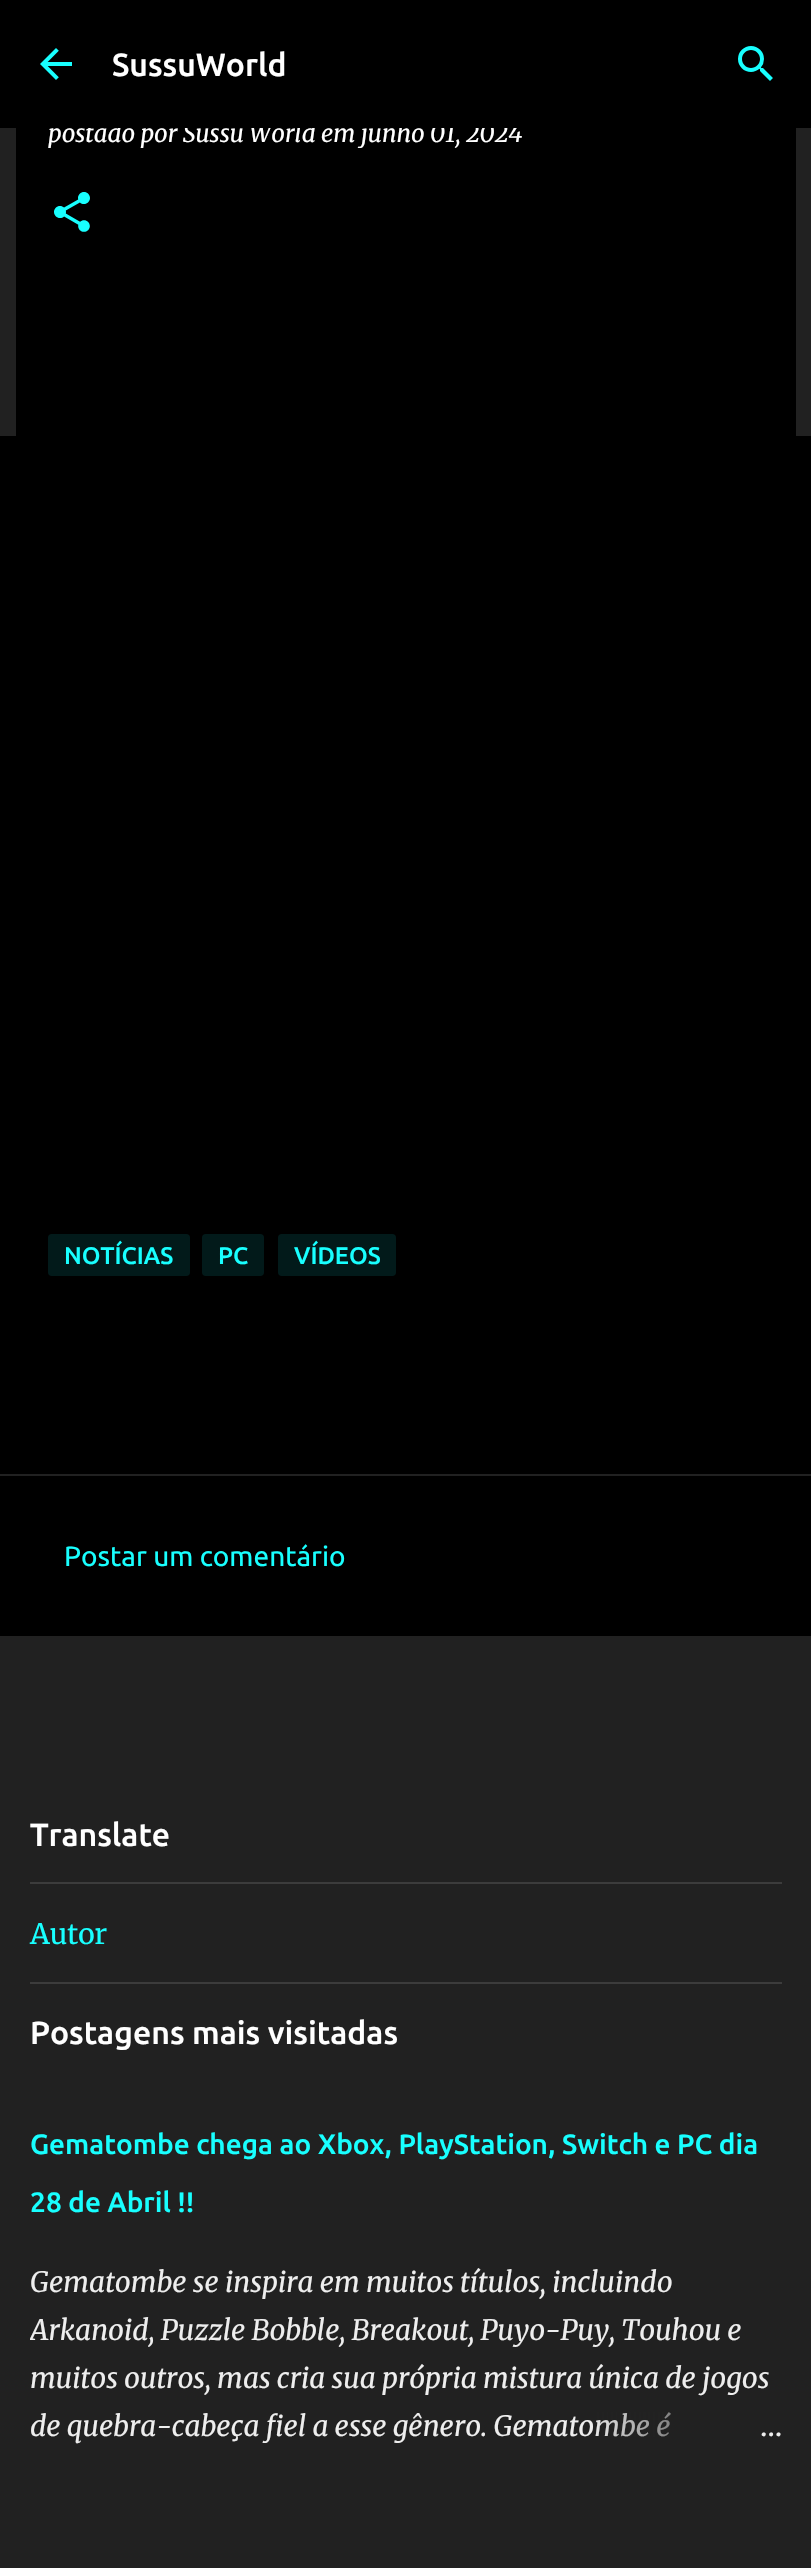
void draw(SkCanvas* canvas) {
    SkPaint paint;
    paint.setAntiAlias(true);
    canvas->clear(0xFF212121);
    paint.setColor(0xFF000000);
    canvas->drawRect(SkRect::MakeXYWH(16, 128, 780, 308), paint);
    SkFont font1(fontMgr->matchFamilyStyle("Merriweather", SkFontStyle::Italic()), 24);
    font1.setSubpixel(true);
    paint.setColor(0xFFFFFFFF);
    canvas->drawString("postado por Sussu World em junho 01, 2024", 48, 142, font1, paint);
    paint.setColor(0xFF000000);
    canvas->drawRect(SkRect::MakeXYWH(0, 0, 811, 128), paint);
    canvas->drawImageRect(SkImages::DeferredFromEncodedData(SkData::MakeFromFileName("img1.png")), SkRect::MakeXYWH(40, 48, 32, 32), SkSamplingOptions());
    SkFont font2(fontMgr->matchFamilyStyle("Ubuntu", SkFontStyle(500, SkFontStyle::kNormal_Width, SkFontStyle::kUpright_Slant)), 32);
    font2.setSubpixel(true);
    paint.setColor(0xFFFFFFFF);
    canvas->drawString("SussuWorld", 112, 76, font2, paint);
    canvas->drawImageRect(SkImages::DeferredFromEncodedData(SkData::MakeFromFileName("img2.png")), SkRect::MakeXYWH(738, 46, 35, 35), SkSamplingOptions());
    paint.setColor(0xFF000000);
    canvas->drawRect(SkRect::MakeXYWH(0, 436, 811, 1038), paint);
    canvas->drawImageRect(SkImages::DeferredFromEncodedData(SkData::MakeFromFileName("img3.png")), SkRect::MakeXYWH(54, 192, 36, 40), SkSamplingOptions());
    paint.setColor(0xFF021A1A);
    canvas->drawRoundRect(SkRect::MakeXYWH(48, 1234, 142, 42), 4, 4, paint);
    SkFont font3(fontMgr->matchFamilyStyle("Ubuntu", SkFontStyle(500, SkFontStyle::kNormal_Width, SkFontStyle::kUpright_Slant)), 24);
    font3.setSubpixel(true);
    paint.setColor(0xFF18FFFF);
    canvas->drawString("NOTÍCIAS", 64, 1264, font3, paint);
    paint.setColor(0xFF021A1A);
    canvas->drawRoundRect(SkRect::MakeXYWH(202, 1234, 62, 42), 4, 4, paint);
    paint.setColor(0xFF18FFFF);
    canvas->drawString("PC", 218, 1264, font3, paint);
    paint.setColor(0xFF021A1A);
    canvas->drawRoundRect(SkRect::MakeXYWH(278, 1234, 118, 42), 4, 4, paint);
    paint.setColor(0xFF18FFFF);
    canvas->drawString("VÍDEOS", 294, 1264, font3, paint);
    paint.setColor(0xFF000000);
    canvas->drawRect(SkRect::MakeXYWH(0, 1476, 811, 160), paint);
    SkFont font4(fontMgr->matchFamilyStyle("Ubuntu", SkFontStyle::Normal()), 28);
    font4.setSubpixel(true);
    paint.setColor(0xFF18FFFF);
    canvas->drawString("Postar um comentário", 64, 1566, font4, paint);
    paint.setColor(0xFFFFFFFF);
    canvas->drawString("Translate", 30, 1846, font2, paint);
    paint.setColor(0xFF3C3C3C);
    canvas->drawRect(SkRect::MakeXYWH(30, 1882, 752, 2), paint);
    SkFont font5(fontMgr->matchFamilyStyle("Merriweather", SkFontStyle::Normal()), 28);
    font5.setSubpixel(true);
    paint.setColor(0xFF18FFFF);
    canvas->drawString("Autor", 30, 1944, font5, paint);
    paint.setColor(0xFF3C3C3C);
    canvas->drawRect(SkRect::MakeXYWH(30, 1982, 752, 2), paint);
    paint.setColor(0xFFFFFFFF);
    canvas->drawString("Postagens mais visitadas", 30, 2044, font2, paint);
    SkFont font6(fontMgr->matchFamilyStyle("Ubuntu", SkFontStyle(500, SkFontStyle::kNormal_Width, SkFontStyle::kUpright_Slant)), 28);
    font6.setSubpixel(true);
    paint.setColor(0xFF18FFFF);
    canvas->drawString("Gematombe chega ao Xbox, PlayStation, Switch e PC dia", 30, 2154, font6, paint);
    canvas->drawString("28 de Abril !!", 30, 2212, font6, paint);
    SkFont font7(fontMgr->matchFamilyStyle("Merriweather", SkFontStyle::Italic()), 28);
    font7.setSubpixel(true);
    paint.setColor(0xFFEEEEEE);
    canvas->drawString("Gematombe se inspira em muitos títulos, incluindo", 30, 2292, font7, paint);
    canvas->save();
    canvas->clipRect(SkRect::MakeXYWH(30, 2258, 752, 192));
    canvas->drawString("Arkanoid, Puzzle Bobble, Breakout, Puyo-Puy, Touhou e", 30, 2340, font7, paint);
    canvas->restore();
    canvas->drawString("muitos outros, mas cria sua própria mistura única de jogos", 30, 2388, font7, paint);
    canvas->drawString("de quebra-cabeça fiel a esse gênero. Gematombe é", 30, 2436, font7, paint);
    {
        const SkColor colors[] = {0xFF212121, 0xFF212121, 0x00212121};
        const float stops[] = {0, 0.2f, 1};
        const SkPoint ends[] = {{782, 2426}, {590, 2426}};
        paint.setShader(SkGradientShader::MakeLinear(ends, colors, stops, 3, SkTileMode::kClamp));
        paint.setAlpha(255);
    }
    canvas->drawRect(SkRect::MakeXYWH(596, 2412, 75, 25), paint);
    paint.setShader(nullptr);
    paint.setColor(0xFFEEEEEE);
    canvas->drawString("…", 760, 2436, font5, paint);
}
